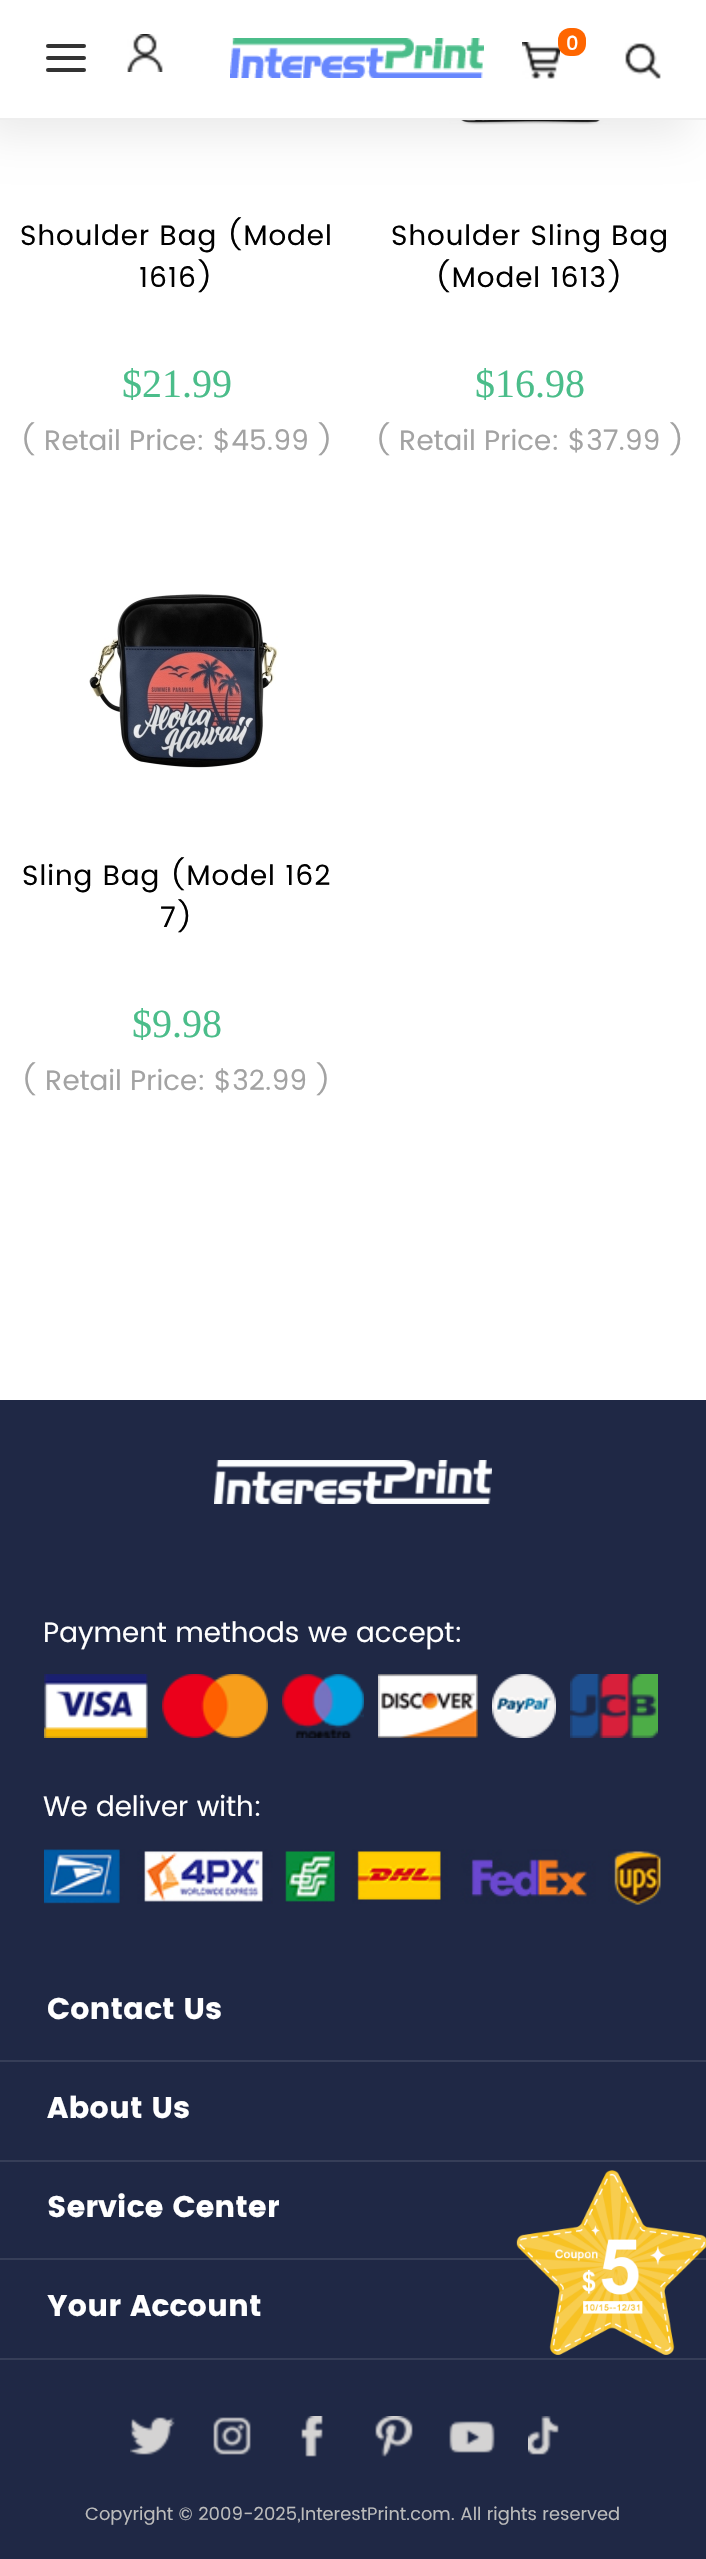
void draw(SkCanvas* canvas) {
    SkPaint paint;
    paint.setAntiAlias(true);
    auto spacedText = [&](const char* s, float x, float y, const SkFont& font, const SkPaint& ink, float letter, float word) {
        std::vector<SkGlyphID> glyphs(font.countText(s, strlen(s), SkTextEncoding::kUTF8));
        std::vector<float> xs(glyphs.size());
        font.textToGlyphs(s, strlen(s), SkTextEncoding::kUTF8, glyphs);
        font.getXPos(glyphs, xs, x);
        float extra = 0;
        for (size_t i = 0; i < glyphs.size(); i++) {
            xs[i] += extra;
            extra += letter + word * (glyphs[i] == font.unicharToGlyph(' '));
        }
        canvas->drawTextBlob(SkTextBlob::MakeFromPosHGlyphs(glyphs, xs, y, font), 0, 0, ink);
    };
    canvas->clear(0xFFFFFFFF);
    canvas->drawImageRect(SkImages::DeferredFromEncodedData(SkData::MakeFromFileName("img5.png")), SkRect::MakeXYWH(449, 120, 161, 5), SkSamplingOptions());
    paint.setColor(0x14000000);
    paint.setMaskFilter(SkMaskFilter::MakeBlur(kNormal_SkBlurStyle, 20));
    canvas->drawRect(SkRect::MakeXYWH(-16, 16, 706, 120), paint);
    paint.setMaskFilter(nullptr);
    paint.setColor(0xFFFFFFFF);
    canvas->drawRect(SkRect::MakeXYWH(0, 0, 706, 118), paint);
    paint.setColor(0xFFEEEEEE);
    canvas->drawRect(SkRect::MakeXYWH(0, 118, 706, 2), paint);
    paint.setColor(0xFF333333);
    canvas->drawRoundRect(SkRect::MakeXYWH(46, 44, 40, 4), 2, 2, paint);
    canvas->drawRoundRect(SkRect::MakeXYWH(46, 56, 40, 4), 2, 2, paint);
    canvas->drawRoundRect(SkRect::MakeXYWH(46, 68, 40, 4), 2, 2, paint);
    canvas->drawImageRect(SkImages::DeferredFromEncodedData(SkData::MakeFromFileName("img1.png")), SkRect::MakeXYWH(230, 38, 254, 40), SkSamplingOptions());
    canvas->drawImageRect(SkImages::DeferredFromEncodedData(SkData::MakeFromFileName("img2.png")), SkRect::MakeXYWH(127, 34, 36, 38), SkSamplingOptions());
    canvas->drawImageRect(SkImages::DeferredFromEncodedData(SkData::MakeFromFileName("img3.png")), SkRect::MakeXYWH(522, 42, 38, 37), SkSamplingOptions());
    paint.setColor(0xFFFF6600);
    canvas->drawRoundRect(SkRect::MakeXYWH(558, 28, 28, 28), 12, 12, paint);
    SkFont font1(fontMgr->matchFamilyStyle("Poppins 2", SkFontStyle::Bold()), 19);
    font1.setSubpixel(true);
    paint.setColor(0xFFFFFFFF);
    canvas->drawString("0", 566, 50, font1, paint);
    canvas->drawImageRect(SkImages::DeferredFromEncodedData(SkData::MakeFromFileName("img4.png")), SkRect::MakeXYWH(625, 43, 36, 36), SkSamplingOptions());
    SkFont font2(fontMgr->matchFamilyStyle("Poppins", SkFontStyle::Normal()), 28);
    font2.setSubpixel(true);
    paint.setColor(0xFF000000);
    spacedText("Shoulder Bag (Model", 20, 245, font2, paint, 1, 0);
    spacedText("1616)", 139, 287, font2, paint, 1, 0);
    SkFont font3(fontMgr->matchFamilyStyle("Liberation Serif", SkFontStyle::Normal()), 40);
    font3.setSubpixel(true);
    paint.setColor(0xFF4BBD8A);
    canvas->drawString("$21.99", 122, 397, font3, paint);
    paint.setColor(0xFFA3A3A3);
    canvas->drawString("( Retail Price: $45.99 )", 20, 450, font2, paint);
    paint.setColor(0xFF000000);
    spacedText("Shoulder Sling Bag", 391, 245, font2, paint, 1, 0);
    spacedText("(Model 1613)", 435, 287, font2, paint, 1, 0);
    paint.setColor(0xFF4BBD8A);
    canvas->drawString("$16.98", 475, 397, font3, paint);
    paint.setColor(0xFFA3A3A3);
    canvas->drawString("( Retail Price: $37.99 )", 375, 450, font2, paint);
    canvas->drawImageRect(SkImages::DeferredFromEncodedData(SkData::MakeFromFileName("img6.png")), SkRect::MakeXYWH(89, 594, 190, 174), SkSamplingOptions());
    paint.setColor(0xFF000000);
    spacedText("Sling Bag (Model 162", 22, 885, font2, paint, 1, 0);
    spacedText("7)", 160, 927, font2, paint, 1, 0);
    paint.setColor(0xFF4BBD8A);
    canvas->drawString("$9.98", 132, 1037, font3, paint);
    paint.setColor(0xFFA3A3A3);
    canvas->drawString("( Retail Price: $32.99 )", 21, 1090, font2, paint);
    paint.setColor(0xFF1F2845);
    canvas->drawRect(SkRect::MakeXYWH(0, 1400, 706, 1159), paint);
    canvas->drawImageRect(SkImages::DeferredFromEncodedData(SkData::MakeFromFileName("img7.png")), SkRect::MakeXYWH(214, 1460, 278, 44), SkSamplingOptions());
    paint.setColor(0xFFFFFFFF);
    canvas->drawString("Payment methods we accept:", 43, 1642, font2, paint);
    canvas->drawImageRect(SkImages::DeferredFromEncodedData(SkData::MakeFromFileName("img8.png")), SkRect::MakeXYWH(44, 1674, 104, 64), SkSamplingOptions());
    canvas->drawImageRect(SkImages::DeferredFromEncodedData(SkData::MakeFromFileName("img9.png")), SkRect::MakeXYWH(162, 1674, 106, 64), SkSamplingOptions());
    canvas->drawImageRect(SkImages::DeferredFromEncodedData(SkData::MakeFromFileName("img10.png")), SkRect::MakeXYWH(282, 1674, 82, 64), SkSamplingOptions());
    canvas->drawImageRect(SkImages::DeferredFromEncodedData(SkData::MakeFromFileName("img11.png")), SkRect::MakeXYWH(378, 1674, 100, 64), SkSamplingOptions());
    canvas->drawImageRect(SkImages::DeferredFromEncodedData(SkData::MakeFromFileName("img12.png")), SkRect::MakeXYWH(492, 1674, 64, 64), SkSamplingOptions());
    canvas->drawImageRect(SkImages::DeferredFromEncodedData(SkData::MakeFromFileName("img13.png")), SkRect::MakeXYWH(570, 1674, 88, 64), SkSamplingOptions());
    canvas->drawString("We deliver with:", 43, 1816, font2, paint);
    canvas->drawImageRect(SkImages::DeferredFromEncodedData(SkData::MakeFromFileName("img14.png")), SkRect::MakeXYWH(44, 1849, 617, 56), SkSamplingOptions());
    paint.setColor(0xFF363E58);
    canvas->drawRect(SkRect::MakeXYWH(0, 2060, 706, 2), paint);
    SkFont font4(fontMgr->matchFamilyStyle("Poppins", SkFontStyle::Bold()), 30);
    font4.setSubpixel(true);
    paint.setColor(0xFFFFFFFF);
    canvas->drawString("Contact Us", 47, 2019, font4, paint);
    paint.setColor(0xFF363E58);
    canvas->drawRect(SkRect::MakeXYWH(0, 2160, 706, 2), paint);
    paint.setColor(0xFFFFFFFF);
    canvas->drawString("About Us", 47, 2118, font4, paint);
    paint.setColor(0xFF363E58);
    canvas->drawRect(SkRect::MakeXYWH(0, 2258, 706, 2), paint);
    paint.setColor(0xFFFFFFFF);
    canvas->drawString("Service Center", 47, 2217, font4, paint);
    paint.setColor(0xFF363E58);
    canvas->drawRect(SkRect::MakeXYWH(0, 2358, 706, 2), paint);
    paint.setColor(0xFFFFFFFF);
    canvas->drawString("Your Account", 47, 2316, font4, paint);
    canvas->drawImageRect(SkImages::DeferredFromEncodedData(SkData::MakeFromFileName("img15.png")), SkRect::MakeXYWH(130, 2417, 45, 38), SkSamplingOptions());
    canvas->drawImageRect(SkImages::DeferredFromEncodedData(SkData::MakeFromFileName("img16.png")), SkRect::MakeXYWH(213, 2417, 38, 38), SkSamplingOptions());
    canvas->drawImageRect(SkImages::DeferredFromEncodedData(SkData::MakeFromFileName("img17.png")), SkRect::MakeXYWH(301, 2416, 22, 41), SkSamplingOptions());
    canvas->drawImageRect(SkImages::DeferredFromEncodedData(SkData::MakeFromFileName("img18.png")), SkRect::MakeXYWH(375, 2416, 38, 41), SkSamplingOptions());
    canvas->drawImageRect(SkImages::DeferredFromEncodedData(SkData::MakeFromFileName("img19.png")), SkRect::MakeXYWH(449, 2421, 46, 32), SkSamplingOptions());
    canvas->drawImageRect(SkImages::DeferredFromEncodedData(SkData::MakeFromFileName("img20.png")), SkRect::MakeXYWH(528, 2416, 31, 39), SkSamplingOptions());
    SkFont font5(fontMgr->matchFamilyStyle("Poppins", SkFontStyle::Normal()), 18);
    font5.setSubpixel(true);
    paint.setColor(0xFFBBBBBB);
    canvas->drawString("Copyright © 2009-2025,InterestPrint.com. All rights reserved", 85, 2520, font5, paint);
    canvas->drawImageRect(SkImages::DeferredFromEncodedData(SkData::MakeFromFileName("img21.png")), SkRect::MakeXYWH(516, 2170, 190, 185), SkSamplingOptions());
}
